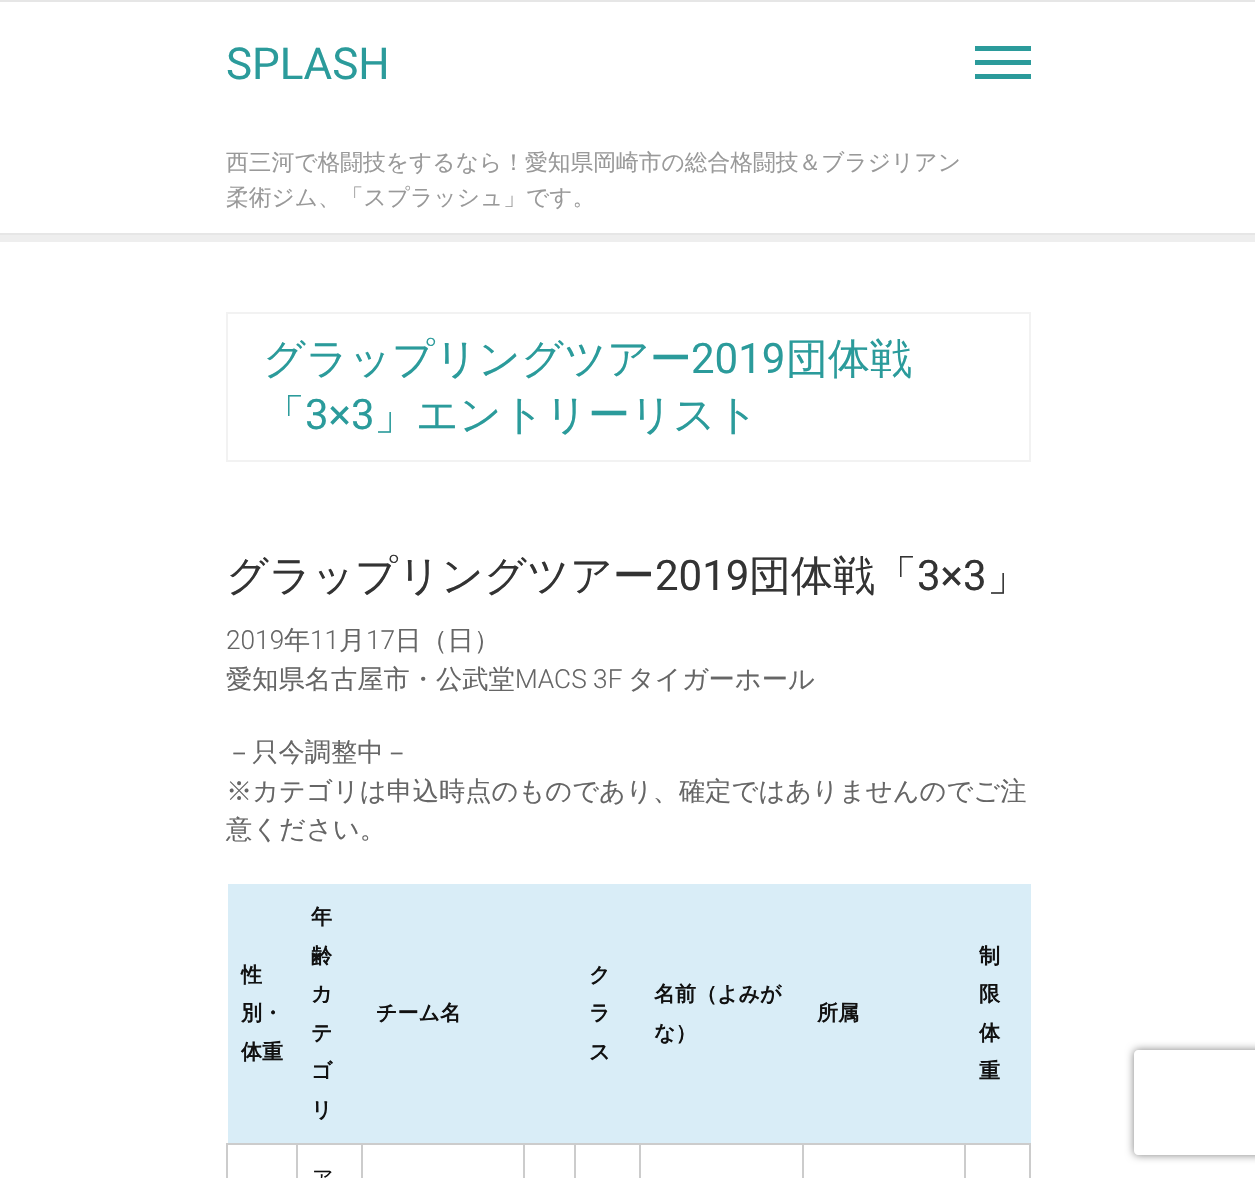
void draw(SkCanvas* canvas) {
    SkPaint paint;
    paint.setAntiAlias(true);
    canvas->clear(0xFFFFFFFF);
    paint.setColor(0xFFE6E6E6);
    canvas->drawRect(SkRect::MakeXYWH(0, 0, 1255, 2), paint);
    SkFont font1(fontMgr->matchFamilyStyle("Roboto", SkFontStyle::Normal()), 44);
    font1.setSubpixel(true);
    paint.setColor(0xFF2B9B9B);
    canvas->drawString("SPLASH", 226, 79, font1, paint);
    SkFont font2(fontMgr->matchFamilyStyle("WenQuanYi Zen Hei", SkFontStyle(500, SkFontStyle::kNormal_Width, SkFontStyle::kUpright_Slant)), 22.75f);
    font2.setSubpixel(true);
    paint.setColor(0xFF999999);
    canvas->drawString("西三河で格闘技をするなら！愛知県岡崎市の総合格闘技＆ブラジリアン", 226, 170, font2, paint);
    canvas->drawString("柔術ジム、「スプラッシュ」です。", 226, 205, font2, paint);
    paint.setColor(0xFF2B9B9B);
    canvas->drawRect(SkRect::MakeXYWH(975, 46, 56, 5), paint);
    canvas->drawRect(SkRect::MakeXYWH(975, 60, 56, 5), paint);
    canvas->drawRect(SkRect::MakeXYWH(975, 74, 56, 5), paint);
    paint.setColor(0xFFEEEEEE);
    canvas->drawRect(SkRect::MakeXYWH(0, 235, 1255, 7), paint);
    paint.setColor(0xFFE6E6E6);
    canvas->drawRect(SkRect::MakeXYWH(0, 233, 1255, 2), paint);
    paint.setStyle(SkPaint::kStroke_Style);
    paint.setStrokeWidth(2);
    paint.setColor(0xFFF2F2F2);
    canvas->drawRect(SkRect::MakeXYWH(227, 313, 803, 148), paint);
    SkFont font3(fontMgr->matchFamilyStyle("WenQuanYi Zen Hei", SkFontStyle(500, SkFontStyle::kNormal_Width, SkFontStyle::kUpright_Slant)), 42);
    font3.setSubpixel(true);
    paint.setStyle(SkPaint::kFill_Style);
    paint.setColor(0xFF2B9B9B);
    canvas->drawString("グラップリングツアー", 263, 373, font3, paint);
    SkFont font4(fontMgr->matchFamilyStyle("Roboto", SkFontStyle::Normal()), 42);
    font4.setSubpixel(true);
    canvas->drawString("2019", 691, 373, font4, paint);
    canvas->drawString("団体戦", 786, 373, font3, paint);
    canvas->drawString("「", 263, 429, font3, paint);
    canvas->drawString("3×3", 305, 429, font4, paint);
    canvas->drawString("」エントリーリスト", 374, 429, font3, paint);
    paint.setColor(0xFF333333);
    canvas->drawString("グラップリングツアー", 226, 590, font3, paint);
    canvas->drawString("2019", 655, 590, font4, paint);
    canvas->drawString("団体戦「", 749, 590, font3, paint);
    canvas->drawString("3×3", 917, 590, font4, paint);
    canvas->drawString("」", 987, 590, font3, paint);
    SkFont font5(fontMgr->matchFamilyStyle("Roboto", SkFontStyle(300, SkFontStyle::kNormal_Width, SkFontStyle::kUpright_Slant)), 26.25f);
    font5.setSubpixel(true);
    paint.setColor(0xFF666666);
    canvas->drawString("2019", 226, 649, font5, paint);
    SkFont font6(fontMgr->matchFamilyStyle("WenQuanYi Zen Hei", SkFontStyle(500, SkFontStyle::kNormal_Width, SkFontStyle::kUpright_Slant)), 26.25f);
    font6.setSubpixel(true);
    canvas->drawString("年", 284, 649, font6, paint);
    canvas->drawString("11", 310, 649, font5, paint);
    canvas->drawString("月", 339, 649, font6, paint);
    canvas->drawString("17", 366, 649, font5, paint);
    canvas->drawString("日（日）", 395, 649, font6, paint);
    canvas->drawString("愛知県名古屋市・公武堂", 226, 688, font6, paint);
    canvas->drawString("MACS 3F", 515, 688, font5, paint);
    canvas->drawString("タイガーホール", 628, 688, font6, paint);
    canvas->drawString("－只今調整中－", 226, 761, font6, paint);
    canvas->drawString("※カテゴリは申込時点のものであり、確定ではありませんのでご注", 226, 800, font6, paint);
    canvas->drawString("意ください。", 226, 838, font6, paint);
    paint.setColor(0xFFD9EDF7);
    canvas->drawRect(SkRect::MakeXYWH(228, 884, 803, 259), paint);
    SkFont font7(fontMgr->matchFamilyStyle("WenQuanYi Zen Hei", SkFontStyle::Bold()), 21);
    font7.setSubpixel(true);
    paint.setColor(0xFF111111);
    canvas->drawString("性", 241, 982, font7, paint);
    canvas->drawString("別・", 241, 1020, font7, paint);
    canvas->drawString("体重", 241, 1059, font7, paint);
    canvas->drawString("年", 311, 924, font7, paint);
    canvas->drawString("齢", 311, 963, font7, paint);
    canvas->drawString("カ", 311, 1001, font7, paint);
    canvas->drawString("テ", 311, 1040, font7, paint);
    canvas->drawString("ゴ", 311, 1078, font7, paint);
    canvas->drawString("リ", 311, 1117, font7, paint);
    canvas->drawString("チーム名", 376, 1020, font7, paint);
    canvas->drawString("ク", 589, 982, font7, paint);
    canvas->drawString("ラ", 589, 1020, font7, paint);
    canvas->drawString("ス", 589, 1059, font7, paint);
    canvas->drawString("名前（よみが", 654, 1001, font7, paint);
    canvas->drawString("な）", 654, 1040, font7, paint);
    canvas->drawString("所属", 817, 1020, font7, paint);
    canvas->drawString("制", 979, 963, font7, paint);
    canvas->drawString("限", 979, 1001, font7, paint);
    canvas->drawString("体", 979, 1040, font7, paint);
    canvas->drawString("重", 979, 1078, font7, paint);
    paint.setColor(0xFFCCCCCC);
    canvas->drawRect(SkRect::MakeXYWH(964, 1143, 67, 2), paint);
    canvas->drawRect(SkRect::MakeXYWH(964, 1143, 2, 35), paint);
    canvas->drawRect(SkRect::MakeXYWH(802, 1143, 164, 2), paint);
    canvas->drawRect(SkRect::MakeXYWH(802, 1143, 2, 35), paint);
    canvas->drawRect(SkRect::MakeXYWH(639, 1143, 164, 2), paint);
    canvas->drawRect(SkRect::MakeXYWH(639, 1143, 2, 35), paint);
    canvas->drawRect(SkRect::MakeXYWH(574, 1143, 67, 2), paint);
    canvas->drawRect(SkRect::MakeXYWH(574, 1143, 2, 35), paint);
    canvas->drawRect(SkRect::MakeXYWH(523, 1143, 53, 2), paint);
    canvas->drawRect(SkRect::MakeXYWH(523, 1143, 2, 35), paint);
    canvas->drawRect(SkRect::MakeXYWH(361, 1143, 164, 2), paint);
    canvas->drawRect(SkRect::MakeXYWH(361, 1143, 2, 35), paint);
    canvas->drawRect(SkRect::MakeXYWH(296, 1143, 66, 2), paint);
    canvas->drawRect(SkRect::MakeXYWH(296, 1143, 2, 35), paint);
    canvas->drawRect(SkRect::MakeXYWH(226, 1143, 72, 2), paint);
    canvas->drawRect(SkRect::MakeXYWH(226, 1143, 2, 35), paint);
    SkFont font8(fontMgr->matchFamilyStyle("WenQuanYi Zen Hei", SkFontStyle(500, SkFontStyle::kNormal_Width, SkFontStyle::kUpright_Slant)), 21);
    font8.setSubpixel(true);
    paint.setColor(0xFF111111);
    canvas->drawString("ア", 312, 1185, font8, paint);
    paint.setColor(0xFFCCCCCC);
    canvas->drawRect(SkRect::MakeXYWH(1029, 1143, 2, 35), paint);
    canvas->save();
    canvas->clipPath(SkPathBuilder(SkPathFillType::kEvenOdd).moveTo(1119, 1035).lineTo(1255, 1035).lineTo(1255, 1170).lineTo(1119, 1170).close().moveTo(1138, 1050).lineTo(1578, 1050).cubicTo(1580, 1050, 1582, 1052, 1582, 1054).lineTo(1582, 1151).cubicTo(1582, 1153, 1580, 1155, 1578, 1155).lineTo(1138, 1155).cubicTo(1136, 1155, 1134, 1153, 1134, 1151).lineTo(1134, 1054).cubicTo(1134, 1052, 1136, 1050, 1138, 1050).close().detach(), true);
    paint.setColor(0xFF808080);
    paint.setMaskFilter(SkMaskFilter::MakeBlur(kNormal_SkBlurStyle, 4.5f));
    canvas->drawRoundRect(SkRect::MakeXYWH(1134, 1050, 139, 105), 4, 4, paint);
    paint.setMaskFilter(nullptr);
    canvas->restore();
}
